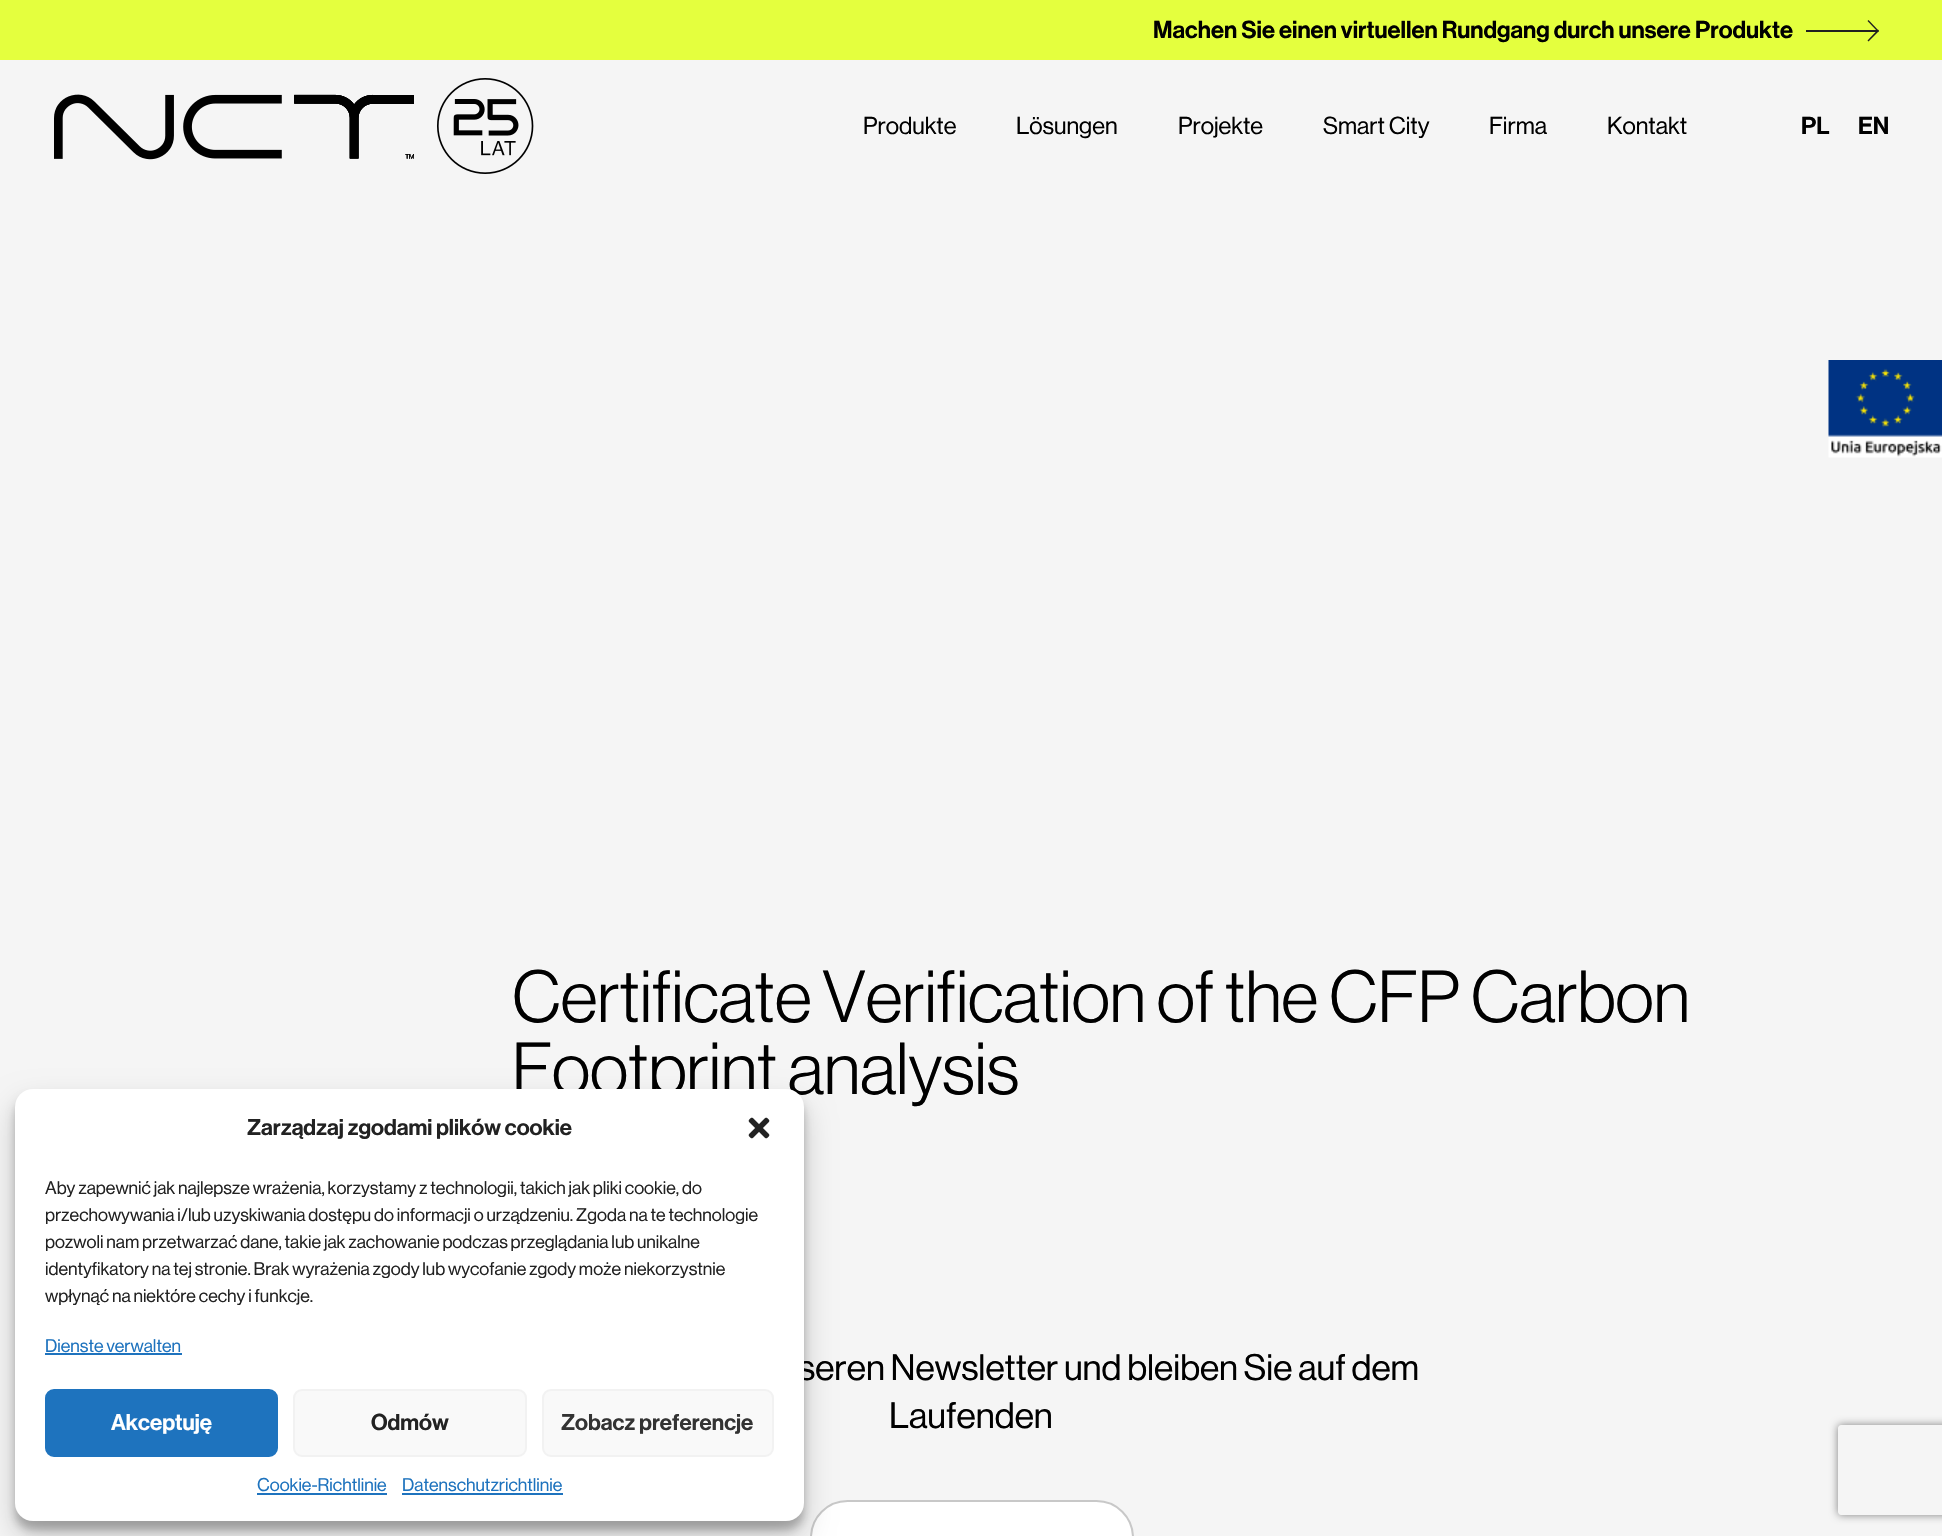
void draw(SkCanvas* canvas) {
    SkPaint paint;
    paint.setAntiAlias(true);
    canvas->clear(0xFFF5F5F5);
    paint.setColor(0xFFE4FF3E);
    canvas->drawRect(SkRect::MakeXYWH(0, 0, 1942, 60), paint);
    SkFont font1(fontMgr->matchFamilyStyle("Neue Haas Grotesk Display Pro", SkFontStyle(500, SkFontStyle::kNormal_Width, SkFontStyle::kUpright_Slant)), 24);
    font1.setSubpixel(true);
    paint.setColor(0xFF000000);
    canvas->drawString("Machen Sie einen virtuellen Rundgang durch unsere Produkte", 1153, 38, font1, paint);
    paint.setColor(0xFF202020);
    canvas->drawRect(SkRect::MakeXYWH(1806, 30, 72, 2), paint);
    canvas->drawPath(SkPathBuilder().moveTo(1868.5f, 20).lineTo(1879, 31).lineTo(1878, 32).lineTo(1867.5f, 21).close().detach(), paint);
    canvas->drawPath(SkPathBuilder().moveTo(1878, 29.5f).lineTo(1879, 31).lineTo(1868.5f, 41.5f).lineTo(1867.5f, 40.5f).close().detach(), paint);
    canvas->drawImageRect(SkImages::DeferredFromEncodedData(SkData::MakeFromFileName("img1.png")), SkRect::MakeXYWH(54, 78, 480, 96), SkSamplingOptions());
    SkFont font2(fontMgr->matchFamilyStyle("Neue Haas Grotesk Display Pro", SkFontStyle::Normal()), 24);
    font2.setSubpixel(true);
    paint.setColor(0xFF000000);
    canvas->drawString("Produkte", 863, 134, font2, paint);
    canvas->drawString("Lösungen", 1016, 134, font2, paint);
    canvas->drawString("Projekte", 1178, 134, font2, paint);
    canvas->drawString("Smart City", 1323, 134, font2, paint);
    canvas->drawString("Firma", 1489, 134, font2, paint);
    canvas->drawString("Kontakt", 1607, 134, font2, paint);
    canvas->drawString("PL", 1801, 134, font1, paint);
    canvas->drawString("EN", 1858, 134, font1, paint);
    canvas->drawImageRect(SkImages::DeferredFromEncodedData(SkData::MakeFromFileName("img2.png")), SkRect::MakeXYWH(1828, 360, 114, 98), SkSamplingOptions());
    SkFont font3(fontMgr->matchFamilyStyle("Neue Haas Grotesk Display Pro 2", SkFontStyle::Normal()), 72);
    font3.setSubpixel(true);
    canvas->drawString("Certificate Verification of the CFP Carbon", 512, 1022, font3, paint);
    canvas->drawString("Footprint analysis", 512, 1094, font3, paint);
    paint.setColor(0xFFFFFFFF);
    canvas->drawRoundRect(SkRect::MakeXYWH(811, 1501, 322, 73), 36.5f, 36.5f, paint);
    paint.setStyle(SkPaint::kStroke_Style);
    paint.setStrokeWidth(2);
    paint.setColor(0xFFC8C8C8);
    canvas->drawRoundRect(SkRect::MakeXYWH(811, 1501, 322, 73), 36.5f, 36.5f, paint);
    paint.setStyle(SkPaint::kFill_Style);
    paint.setColor(0x3B000000);
    paint.setMaskFilter(SkMaskFilter::MakeBlur(kNormal_SkBlurStyle, 4.5f));
    canvas->drawRoundRect(SkRect::MakeXYWH(15, 1098, 789, 432), 18, 18, paint);
    paint.setMaskFilter(nullptr);
    paint.setColor(0x30000000);
    paint.setMaskFilter(SkMaskFilter::MakeBlur(kNormal_SkBlurStyle, 15));
    canvas->drawRoundRect(SkRect::MakeXYWH(15, 1104, 789, 432), 18, 18, paint);
    paint.setMaskFilter(nullptr);
    SkFont font4(fontMgr->matchFamilyStyle("Neue Haas Grotesk Display Pro", SkFontStyle::Normal()), 36);
    font4.setSubpixel(true);
    paint.setColor(0xFF000000);
    canvas->drawString("seren Newsletter und bleiben Sie auf dem", 798, 1380, font4, paint);
    paint.setColor(0xFFFFFFFF);
    canvas->drawRoundRect(SkRect::MakeXYWH(15, 1089, 789, 432), 18, 18, paint);
    SkFont font5(fontMgr->matchFamilyStyle("Neue Haas Grotesk Display Pro", SkFontStyle(500, SkFontStyle::kNormal_Width, SkFontStyle::kUpright_Slant)), 22.5f);
    font5.setSubpixel(true);
    paint.setColor(0xFF222222);
    canvas->drawString("Zarządzaj zgodami plików cookie", 247, 1135, font5, paint);
    canvas->drawImageRect(SkImages::DeferredFromEncodedData(SkData::MakeFromFileName("img3.png")), SkRect::MakeXYWH(748, 1117, 22, 22), SkSamplingOptions());
    SkFont font6(fontMgr->matchFamilyStyle("Neue Haas Grotesk Display Pro", SkFontStyle::Normal()), 18);
    font6.setSubpixel(true);
    canvas->drawString("Aby zapewnić jak najlepsze wrażenia, korzystamy z technologii, takich jak pliki cookie, do", 45, 1194, font6, paint);
    canvas->drawString("przechowywania i/lub uzyskiwania dostępu do informacji o urządzeniu. Zgoda na te technologie", 45, 1221, font6, paint);
    canvas->drawString("pozwoli nam przetwarzać dane, takie jak zachowanie podczas przeglądania lub unikalne", 45, 1248, font6, paint);
    canvas->drawString("identyfikatory na tej stronie. Brak wyrażenia zgody lub wycofanie zgody może niekorzystnie", 45, 1275, font6, paint);
    canvas->drawString("wpłynąć na niektóre cechy i funkcje.", 45, 1302, font6, paint);
    paint.setColor(0xFF1E73BE);
    canvas->drawString("Dienste verwalten", 45, 1352, font6, paint);
    canvas->drawRect(SkRect::MakeXYWH(45, 1353, 137, 2), paint);
    canvas->drawRoundRect(SkRect::MakeXYWH(46, 1390, 231, 66), 8, 8, paint);
    paint.setStyle(SkPaint::kStroke_Style);
    canvas->drawRoundRect(SkRect::MakeXYWH(46, 1390, 231, 66), 8, 8, paint);
    paint.setStyle(SkPaint::kFill_Style);
    paint.setColor(0xFFFFFFFF);
    canvas->drawString("Akceptuję", 111, 1430, font5, paint);
    paint.setColor(0xFFF9F9F9);
    canvas->drawRoundRect(SkRect::MakeXYWH(294, 1390, 232, 66), 8, 8, paint);
    paint.setStyle(SkPaint::kStroke_Style);
    paint.setColor(0xFFF2F2F2);
    canvas->drawRoundRect(SkRect::MakeXYWH(294, 1390, 232, 66), 8, 8, paint);
    paint.setStyle(SkPaint::kFill_Style);
    paint.setColor(0xFF222222);
    canvas->drawString("Odmów", 371, 1430, font5, paint);
    paint.setColor(0xFFF9F9F9);
    canvas->drawRoundRect(SkRect::MakeXYWH(543, 1390, 230, 66), 8, 8, paint);
    paint.setStyle(SkPaint::kStroke_Style);
    paint.setColor(0xFFF2F2F2);
    canvas->drawRoundRect(SkRect::MakeXYWH(543, 1390, 230, 66), 8, 8, paint);
    paint.setStyle(SkPaint::kFill_Style);
    paint.setColor(0xFF333333);
    canvas->drawString("Zobacz preferencje", 561, 1430, font5, paint);
    paint.setColor(0xFF1E73BE);
    canvas->drawString("Cookie-Richtlinie", 257, 1491, font6, paint);
    canvas->drawRect(SkRect::MakeXYWH(257, 1493, 130, 2), paint);
    canvas->drawString("Datenschutzrichtlinie", 402, 1491, font6, paint);
    canvas->drawRect(SkRect::MakeXYWH(402, 1493, 161, 2), paint);
    paint.setColor(0xFF000000);
    canvas->drawString("Laufenden", 889, 1428, font4, paint);
    canvas->save();
    canvas->clipPath(SkPathBuilder(SkPathFillType::kEvenOdd).moveTo(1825, 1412).lineTo(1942, 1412).lineTo(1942, 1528).lineTo(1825, 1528).close().moveTo(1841, 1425).lineTo(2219, 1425).cubicTo(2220.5f, 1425, 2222, 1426.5f, 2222, 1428).lineTo(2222, 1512).cubicTo(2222, 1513.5f, 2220.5f, 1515, 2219, 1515).lineTo(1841, 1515).cubicTo(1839.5f, 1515, 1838, 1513.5f, 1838, 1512).lineTo(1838, 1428).cubicTo(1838, 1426.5f, 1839.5f, 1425, 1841, 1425).close().detach(), true);
    paint.setColor(0xFF808080);
    paint.setMaskFilter(SkMaskFilter::MakeBlur(kNormal_SkBlurStyle, 4));
    canvas->drawRoundRect(SkRect::MakeXYWH(1838, 1425, 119, 90), 3, 3, paint);
    paint.setMaskFilter(nullptr);
    canvas->restore();
}
